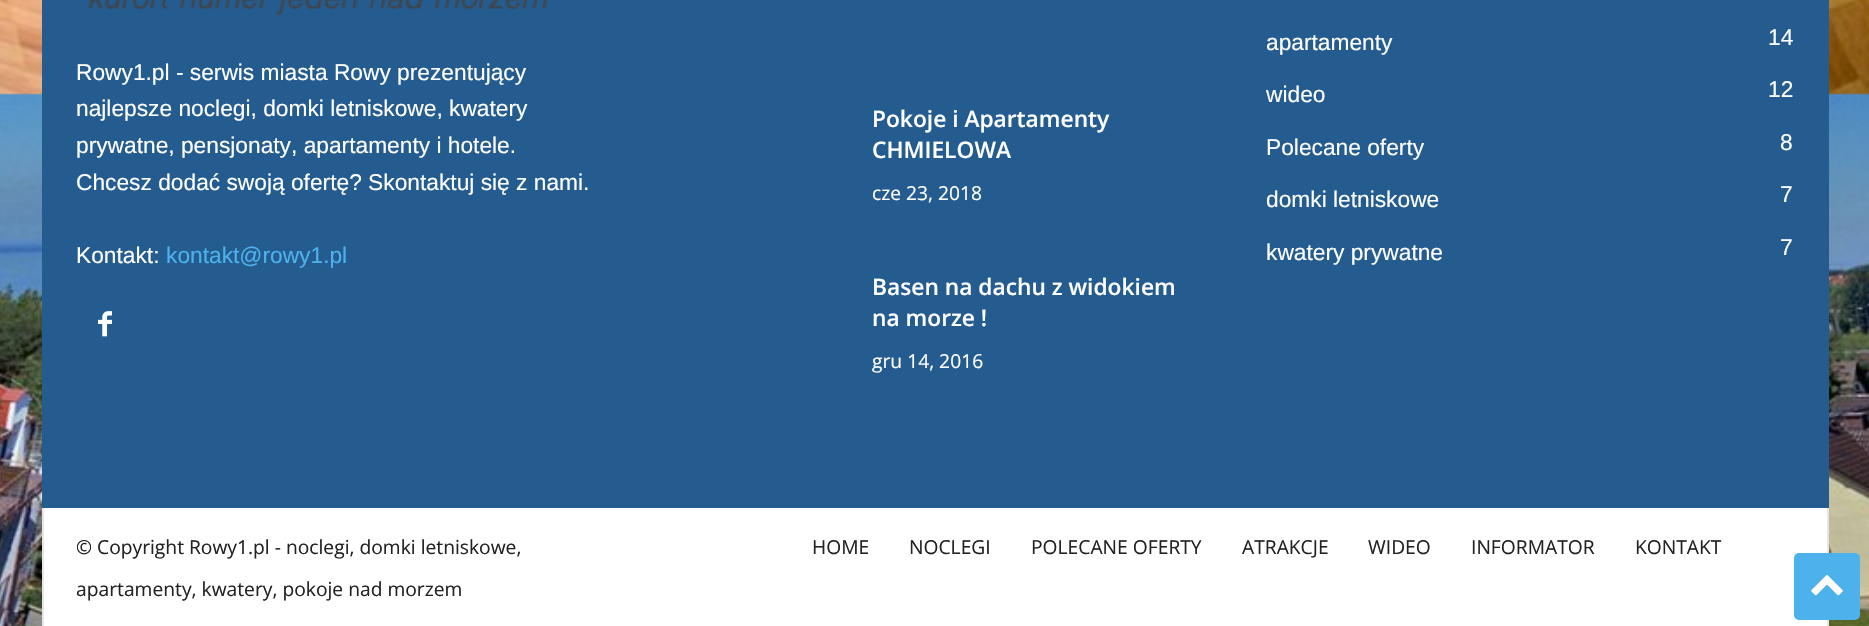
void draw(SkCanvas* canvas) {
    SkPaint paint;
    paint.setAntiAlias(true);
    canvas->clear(0xFFFFFFFF);
    canvas->drawImageRect(SkImages::DeferredFromEncodedData(SkData::MakeFromFileName("img1.png")), SkRect::MakeXYWH(0, 0, 1869, 626), SkSamplingOptions());
    paint.setColor(0xFF245C8F);
    canvas->drawRect(SkRect::MakeXYWH(42, 0, 1787, 508), paint);
    canvas->drawImageRect(SkImages::DeferredFromEncodedData(SkData::MakeFromFileName("img2.png")), SkRect::MakeXYWH(87, 0, 462, 16), SkSamplingOptions());
    SkFont font1(fontMgr->matchFamilyStyle("Liberation Sans", SkFontStyle::Normal()), 22.75f);
    font1.setSubpixel(true);
    paint.setColor(0xFFFFFFFF);
    canvas->drawString("Rowy1.pl - serwis miasta Rowy prezentujący", 76, 80, font1, paint);
    canvas->drawString("najlepsze noclegi, domki letniskowe, kwatery", 76, 116, font1, paint);
    canvas->drawString("prywatne, pensjonaty, apartamenty i hotele.", 76, 153, font1, paint);
    canvas->drawString("Chcesz dodać swoją ofertę? Skontaktuj się z nami.", 76, 190, font1, paint);
    canvas->drawString("Kontakt:", 76, 263, font1, paint);
    paint.setColor(0xFF4DB2EC);
    canvas->drawString("kontakt@rowy1.pl", 166, 263, font1, paint);
    canvas->drawImageRect(SkImages::DeferredFromEncodedData(SkData::MakeFromFileName("img3.png")), SkRect::MakeXYWH(98, 311, 14, 26), SkSamplingOptions());
    SkFont font2(fontMgr->matchFamilyStyle("Open Sans", SkFontStyle(600, SkFontStyle::kNormal_Width, SkFontStyle::kUpright_Slant)), 22.75f);
    font2.setSubpixel(true);
    paint.setColor(0xFFFFFFFF);
    canvas->drawString("Pokoje i Apartamenty", 872, 127, font2, paint);
    canvas->drawString("CHMIELOWA", 872, 158, font2, paint);
    SkFont font3(fontMgr->matchFamilyStyle("Open Sans", SkFontStyle::Normal()), 19.25f);
    font3.setSubpixel(true);
    canvas->drawString("cze 23, 2018", 872, 200, font3, paint);
    canvas->drawString("Basen na dachu z widokiem", 872, 295, font2, paint);
    canvas->drawString("na morze !", 872, 326, font2, paint);
    canvas->drawString("gru 14, 2016", 872, 368, font3, paint);
    canvas->drawString("apartamenty", 1266, 50, font1, paint);
    canvas->drawString("14", 1768, 45, font1, paint);
    canvas->drawString("wideo", 1266, 102, font1, paint);
    canvas->drawString("12", 1768, 97, font1, paint);
    canvas->drawString("Polecane oferty", 1266, 155, font1, paint);
    canvas->drawString("8", 1780, 150, font1, paint);
    canvas->drawString("domki letniskowe", 1266, 207, font1, paint);
    canvas->drawString("7", 1780, 202, font1, paint);
    canvas->drawString("kwatery prywatne", 1266, 260, font1, paint);
    canvas->drawString("7", 1780, 255, font1, paint);
    canvas->drawRect(SkRect::MakeXYWH(44, 508, 1783, 118), paint);
    paint.setColor(0xFFE6E6E6);
    canvas->drawRect(SkRect::MakeXYWH(42, 508, 2, 118), paint);
    paint.setColor(0xFF222222);
    canvas->drawString("© Copyright Rowy1.pl - noclegi, domki letniskowe,", 76, 554, font3, paint);
    canvas->drawString("apartamenty, kwatery, pokoje nad morzem", 76, 596, font3, paint);
    canvas->drawString("HOME", 812, 554, font3, paint);
    canvas->drawString("NOCLEGI", 909, 554, font3, paint);
    canvas->drawString("POLECANE OFERTY", 1031, 554, font3, paint);
    canvas->drawString("ATRAKCJE", 1242, 554, font3, paint);
    canvas->drawString("WIDEO", 1368, 554, font3, paint);
    canvas->drawString("INFORMATOR", 1471, 554, font3, paint);
    canvas->drawString("KONTAKT", 1635, 554, font3, paint);
    paint.setColor(0xFFE6E6E6);
    canvas->drawRect(SkRect::MakeXYWH(1827, 508, 2, 118), paint);
    paint.setColor(0xFF4DB2EC);
    canvas->drawRoundRect(SkRect::MakeXYWH(1794, 553, 66, 67), 5, 5, paint);
    canvas->drawImageRect(SkImages::DeferredFromEncodedData(SkData::MakeFromFileName("img4.png")), SkRect::MakeXYWH(1811, 575, 32, 21), SkSamplingOptions());
}
